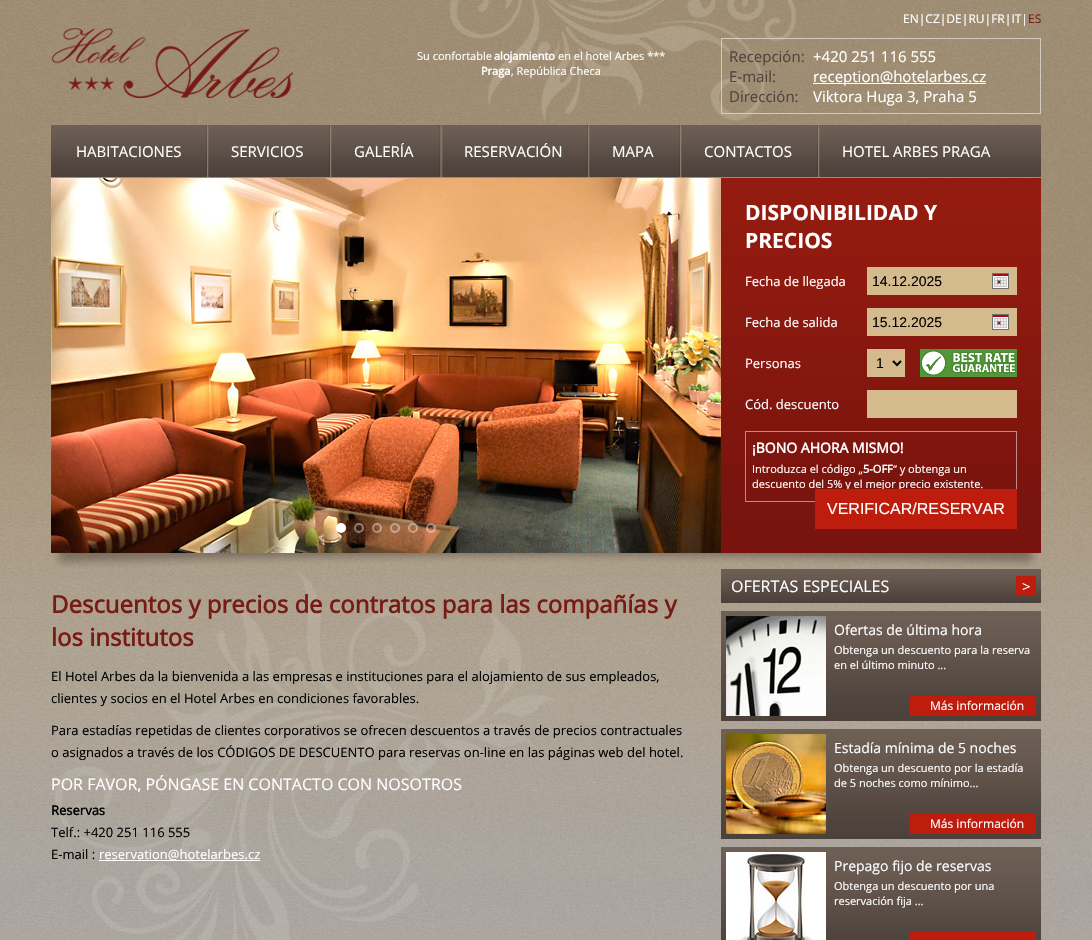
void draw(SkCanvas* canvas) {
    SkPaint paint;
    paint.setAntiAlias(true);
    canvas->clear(0xFFFFFFFF);
    canvas->drawImageRect(SkImages::DeferredFromEncodedData(SkData::MakeFromFileName("img1.png")), SkRect::MakeXYWH(0, 0, 1092, 940), SkSamplingOptions());
    canvas->drawImageRect(SkImages::DeferredFromEncodedData(SkData::MakeFromFileName("img2.png")), SkRect::MakeXYWH(449, 0, 347, 121), SkSamplingOptions());
    canvas->drawImageRect(SkImages::DeferredFromEncodedData(SkData::MakeFromFileName("img3.png")), SkRect::MakeXYWH(52, 28, 241, 70), SkSamplingOptions());
    SkFont font1(fontMgr->matchFamilyStyle("Open Sans", SkFontStyle::Normal()), 11);
    font1.setSubpixel(true);
    paint.setColor(0xFFFFFFFF);
    canvas->drawString("Su confortable", 417, 60, font1, paint);
    SkFont font2(fontMgr->matchFamilyStyle("Open Sans", SkFontStyle::Bold()), 11);
    font2.setSubpixel(true);
    canvas->drawString("alojamiento", 494, 60, font2, paint);
    canvas->drawString("en el hotel Arbes ***", 558, 60, font1, paint);
    canvas->drawString("Praga", 481, 75, font2, paint);
    canvas->drawString(", República Checa", 511, 75, font1, paint);
    SkFont font3(fontMgr->matchFamilyStyle("Open Sans", SkFontStyle::Normal()), 12);
    font3.setSubpixel(true);
    canvas->drawString("EN|CZ|DE|RU|FR|IT|", 903, 23, font3, paint);
    paint.setColor(0xFF771B14);
    canvas->drawString("ES", 1028, 23, font3, paint);
    paint.setStyle(SkPaint::kStroke_Style);
    paint.setStrokeWidth(1);
    paint.setColor(0xFFD3CBBE);
    canvas->drawRect(SkRect::MakeXYWH(721.5f, 38.5f, 319, 75), paint);
    SkFont font4(fontMgr->matchFamilyStyle("Open Sans", SkFontStyle::Normal()), 15);
    font4.setSubpixel(true);
    paint.setStyle(SkPaint::kFill_Style);
    paint.setColor(0xFF4F443D);
    canvas->drawString("Recepción:", 729, 62, font4, paint);
    paint.setColor(0xFFFFFFFF);
    canvas->drawString("+420 251 116 555", 813, 62, font4, paint);
    paint.setColor(0xFF4F443D);
    canvas->drawString("E-mail:", 729, 82, font4, paint);
    paint.setColor(0xFFFFFFFF);
    canvas->drawRect(SkRect::MakeXYWH(813, 83, 173, 1), paint);
    canvas->drawString("reception@hotelarbes.cz", 813, 82, font4, paint);
    paint.setColor(0xFF4F443D);
    canvas->drawString("Dirección:", 729, 102, font4, paint);
    paint.setColor(0xFFFFFFFF);
    canvas->drawString("Viktora Huga 3, Praha 5", 813, 102, font4, paint);
    canvas->drawImageRect(SkImages::DeferredFromEncodedData(SkData::MakeFromFileName("img4.png")), SkRect::MakeXYWH(51, 125, 990, 52), SkSamplingOptions());
    canvas->drawString("HABITACIONES", 76, 157, font4, paint);
    canvas->drawImageRect(SkImages::DeferredFromEncodedData(SkData::MakeFromFileName("img5.png")), SkRect::MakeXYWH(206, 125, 3, 52), SkSamplingOptions());
    canvas->drawString("SERVICIOS", 231, 157, font4, paint);
    canvas->drawImageRect(SkImages::DeferredFromEncodedData(SkData::MakeFromFileName("img5.png")), SkRect::MakeXYWH(329, 125, 3, 52), SkSamplingOptions());
    canvas->drawString("GALERÍA", 354, 157, font4, paint);
    canvas->drawImageRect(SkImages::DeferredFromEncodedData(SkData::MakeFromFileName("img6.png")), SkRect::MakeXYWH(439, 125, 4, 52), SkSamplingOptions());
    canvas->drawString("RESERVACIÓN", 464, 157, font4, paint);
    canvas->drawImageRect(SkImages::DeferredFromEncodedData(SkData::MakeFromFileName("img5.png")), SkRect::MakeXYWH(587, 125, 3, 52), SkSamplingOptions());
    canvas->drawString("MAPA", 612, 157, font4, paint);
    canvas->drawImageRect(SkImages::DeferredFromEncodedData(SkData::MakeFromFileName("img5.png")), SkRect::MakeXYWH(679, 125, 3, 52), SkSamplingOptions());
    canvas->drawString("CONTACTOS", 704, 157, font4, paint);
    canvas->drawImageRect(SkImages::DeferredFromEncodedData(SkData::MakeFromFileName("img5.png")), SkRect::MakeXYWH(817, 125, 3, 52), SkSamplingOptions());
    canvas->drawString("HOTEL ARBES PRAGA", 842, 157, font4, paint);
    canvas->drawImageRect(SkImages::DeferredFromEncodedData(SkData::MakeFromFileName("img7.png")), SkRect::MakeXYWH(51, 178, 670, 375), SkSamplingOptions());
    canvas->drawCircle(341, 528, 4, paint);
    paint.setStyle(SkPaint::kStroke_Style);
    paint.setStrokeWidth(2);
    canvas->drawCircle(341, 528, 4, paint);
    paint.setColor(0x66FFFFFF);
    canvas->drawCircle(359, 528, 4, paint);
    canvas->drawCircle(377, 528, 4, paint);
    canvas->drawCircle(395, 528, 4, paint);
    canvas->drawCircle(413, 528, 4, paint);
    canvas->drawCircle(431, 528, 4, paint);
    canvas->drawImageRect(SkImages::DeferredFromEncodedData(SkData::MakeFromFileName("img8.png")), SkRect::MakeXYWH(721, 178, 320, 375), SkSamplingOptions());
    SkFont font5(fontMgr->matchFamilyStyle("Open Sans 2", SkFontStyle::Bold()), 21);
    font5.setSubpixel(true);
    paint.setStyle(SkPaint::kFill_Style);
    paint.setColor(0xFFFFFFFF);
    canvas->drawString("DISPONIBILIDAD Y", 745, 220, font5, paint);
    canvas->drawString("PRECIOS", 745, 248, font5, paint);
    SkFont font6(fontMgr->matchFamilyStyle("Open Sans", SkFontStyle::Normal()), 13);
    font6.setSubpixel(true);
    canvas->drawString("Fecha de llegada", 745, 286, font6, paint);
    paint.setColor(0xFFD5BA8E);
    canvas->drawRect(SkRect::MakeXYWH(867, 267, 150, 28), paint);
    canvas->drawImageRect(SkImages::DeferredFromEncodedData(SkData::MakeFromFileName("img9.png")), SkRect::MakeXYWH(992, 273, 17, 16), SkSamplingOptions());
    SkFont font7(fontMgr->matchFamilyStyle("Liberation Sans", SkFontStyle::Normal()), 14);
    font7.setSubpixel(true);
    paint.setColor(0xFF000000);
    canvas->drawString("14.12.2025", 872, 286, font7, paint);
    paint.setColor(0xFFFFFFFF);
    canvas->drawString("Fecha de salida", 745, 327, font6, paint);
    paint.setColor(0xFFD5BA8E);
    canvas->drawRect(SkRect::MakeXYWH(867, 308, 150, 28), paint);
    canvas->drawImageRect(SkImages::DeferredFromEncodedData(SkData::MakeFromFileName("img9.png")), SkRect::MakeXYWH(992, 314, 17, 16), SkSamplingOptions());
    paint.setColor(0xFF000000);
    canvas->drawString("15.12.2025", 872, 327, font7, paint);
    canvas->drawImageRect(SkImages::DeferredFromEncodedData(SkData::MakeFromFileName("img10.png")), SkRect::MakeXYWH(920, 349, 97, 28), SkSamplingOptions());
    paint.setColor(0xFFFFFFFF);
    canvas->drawString("Personas", 745, 368, font6, paint);
    paint.setColor(0xFFD5BA8E);
    canvas->drawRect(SkRect::MakeXYWH(867, 349, 38, 28), paint);
    paint.setStyle(SkPaint::kStroke_Style);
    paint.setColor(0xFF000000);
    canvas->drawPath(SkPathBuilder().moveTo(893, 361).lineTo(897, 365).lineTo(901, 361).detach(), paint);
    paint.setStyle(SkPaint::kFill_Style);
    canvas->drawString("1", 876, 368, font7, paint);
    paint.setColor(0xFFFFFFFF);
    canvas->drawString("Cód. descuento", 745, 409, font6, paint);
    paint.setColor(0xFFD5BA8E);
    canvas->drawRect(SkRect::MakeXYWH(867, 390, 150, 28), paint);
    paint.setStyle(SkPaint::kStroke_Style);
    paint.setStrokeWidth(1);
    paint.setColor(0xFFC08B87);
    canvas->drawRect(SkRect::MakeXYWH(745.5f, 431.5f, 271, 70), paint);
    SkFont font8(fontMgr->matchFamilyStyle("Open Sans", SkFontStyle::Bold()), 14);
    font8.setSubpixel(true);
    paint.setStyle(SkPaint::kFill_Style);
    paint.setColor(0xFFFFFFFF);
    canvas->drawString("¡BONO AHORA MISMO!", 752, 453, font8, paint);
    canvas->drawString("Introduzca el código „", 752, 473, font1, paint);
    canvas->drawString("5-OFF", 863, 473, font2, paint);
    canvas->drawString("“ y obtenga un", 893, 473, font1, paint);
    canvas->drawString("descuento del 5% y el mejor precio existente.", 752, 488, font1, paint);
    paint.setColor(0xFFBE1C0D);
    canvas->drawRect(SkRect::MakeXYWH(815, 489, 202, 40), paint);
    SkFont font9(fontMgr->matchFamilyStyle("Liberation Sans", SkFontStyle::Normal()), 16);
    font9.setSubpixel(true);
    paint.setColor(0xFFFFFFFF);
    canvas->drawString("VERIFICAR/RESERVAR", 827, 514, font9, paint);
    canvas->drawImageRect(SkImages::DeferredFromEncodedData(SkData::MakeFromFileName("img11.png")), SkRect::MakeXYWH(53, 553, 985, 15), SkSamplingOptions());
    canvas->drawImageRect(SkImages::DeferredFromEncodedData(SkData::MakeFromFileName("img12.png")), SkRect::MakeXYWH(55, 570, 501, 370), SkSamplingOptions());
    SkFont font10(fontMgr->matchFamilyStyle("Open Sans", SkFontStyle::Bold()), 24);
    font10.setSubpixel(true);
    paint.setColor(0xFF771B14);
    canvas->drawString("Descuentos y precios de contratos para las compañías y", 51, 613, font10, paint);
    canvas->drawString("los institutos", 51, 646, font10, paint);
    paint.setColor(0xFF000000);
    canvas->drawString("El Hotel Arbes da la bienvenida a las empresas e instituciones para el alojamiento de sus empleados,", 51, 681, font6, paint);
    canvas->drawString("clientes y socios en el Hotel Arbes en condiciones favorables.", 51, 703, font6, paint);
    canvas->drawString("Para estadías repetidas de clientes corporativos se ofrecen descuentos a través de precios contractuales", 51, 735, font6, paint);
    canvas->drawString("o asignados a través de los CÓDIGOS DE DESCUENTO para reservas on-line en las páginas web del hotel.", 51, 757, font6, paint);
    SkFont font11(fontMgr->matchFamilyStyle("Open Sans", SkFontStyle::Normal()), 16);
    font11.setSubpixel(true);
    paint.setColor(0xFFFFFFFF);
    canvas->drawString("POR FAVOR, PÓNGASE EN CONTACTO CON NOSOTROS", 51, 790, font11, paint);
    SkFont font12(fontMgr->matchFamilyStyle("Open Sans", SkFontStyle::Bold()), 13);
    font12.setSubpixel(true);
    paint.setColor(0xFF000000);
    canvas->drawString("Reservas", 51, 815, font12, paint);
    canvas->drawString("Telf.: +420 251 116 555", 51, 837, font6, paint);
    canvas->drawString("E-mail :", 51, 859, font6, paint);
    paint.setColor(0xFFFFFFFF);
    canvas->drawRect(SkRect::MakeXYWH(99, 860, 161, 1), paint);
    canvas->drawString("reservation@hotelarbes.cz", 99, 859, font6, paint);
    canvas->drawImageRect(SkImages::DeferredFromEncodedData(SkData::MakeFromFileName("img13.png")), SkRect::MakeXYWH(721, 569, 320, 34), SkSamplingOptions());
    canvas->drawString("OFERTAS ESPECIALES", 731, 592, font11, paint);
    canvas->drawImageRect(SkImages::DeferredFromEncodedData(SkData::MakeFromFileName("img14.png")), SkRect::MakeXYWH(721, 611, 320, 110), SkSamplingOptions());
    canvas->drawImageRect(SkImages::DeferredFromEncodedData(SkData::MakeFromFileName("img15.png")), SkRect::MakeXYWH(726, 616, 100, 100), SkSamplingOptions());
    SkFont font13(fontMgr->matchFamilyStyle("Open Sans", SkFontStyle::Normal()), 14);
    font13.setSubpixel(true);
    canvas->drawString("Ofertas de última hora", 834, 635, font13, paint);
    canvas->drawString("Obtenga un descuento para la reserva", 834, 654, font1, paint);
    canvas->drawString("en el último minuto ...", 834, 669, font1, paint);
    paint.setColor(0xFFBE1C0D);
    canvas->drawRect(SkRect::MakeXYWH(910, 696, 126, 20), paint);
    paint.setColor(0xFFFFFFFF);
    canvas->drawString("Más información", 930, 710, font3, paint);
    canvas->drawImageRect(SkImages::DeferredFromEncodedData(SkData::MakeFromFileName("img14.png")), SkRect::MakeXYWH(721, 729, 320, 110), SkSamplingOptions());
    canvas->drawImageRect(SkImages::DeferredFromEncodedData(SkData::MakeFromFileName("img16.png")), SkRect::MakeXYWH(726, 734, 100, 100), SkSamplingOptions());
    canvas->drawString("Estadía mínima de 5 noches", 834, 753, font13, paint);
    canvas->drawString("Obtenga un descuento por la estadía", 834, 772, font1, paint);
    canvas->drawString("de 5 noches como mínimo...", 834, 787, font1, paint);
    paint.setColor(0xFFBE1C0D);
    canvas->drawRect(SkRect::MakeXYWH(910, 814, 126, 20), paint);
    paint.setColor(0xFFFFFFFF);
    canvas->drawString("Más información", 930, 828, font3, paint);
    canvas->drawImageRect(SkImages::DeferredFromEncodedData(SkData::MakeFromFileName("img17.png")), SkRect::MakeXYWH(721, 847, 320, 93), SkSamplingOptions());
    canvas->drawImageRect(SkImages::DeferredFromEncodedData(SkData::MakeFromFileName("img18.png")), SkRect::MakeXYWH(726, 852, 100, 88), SkSamplingOptions());
    canvas->drawString("Prepago fijo de reservas", 834, 871, font13, paint);
    canvas->drawString("Obtenga un descuento por una", 834, 890, font1, paint);
    canvas->drawString("reservación fija ...", 834, 905, font1, paint);
    paint.setColor(0xFFBE1C0D);
    canvas->drawRect(SkRect::MakeXYWH(910, 932, 126, 8), paint);
}
